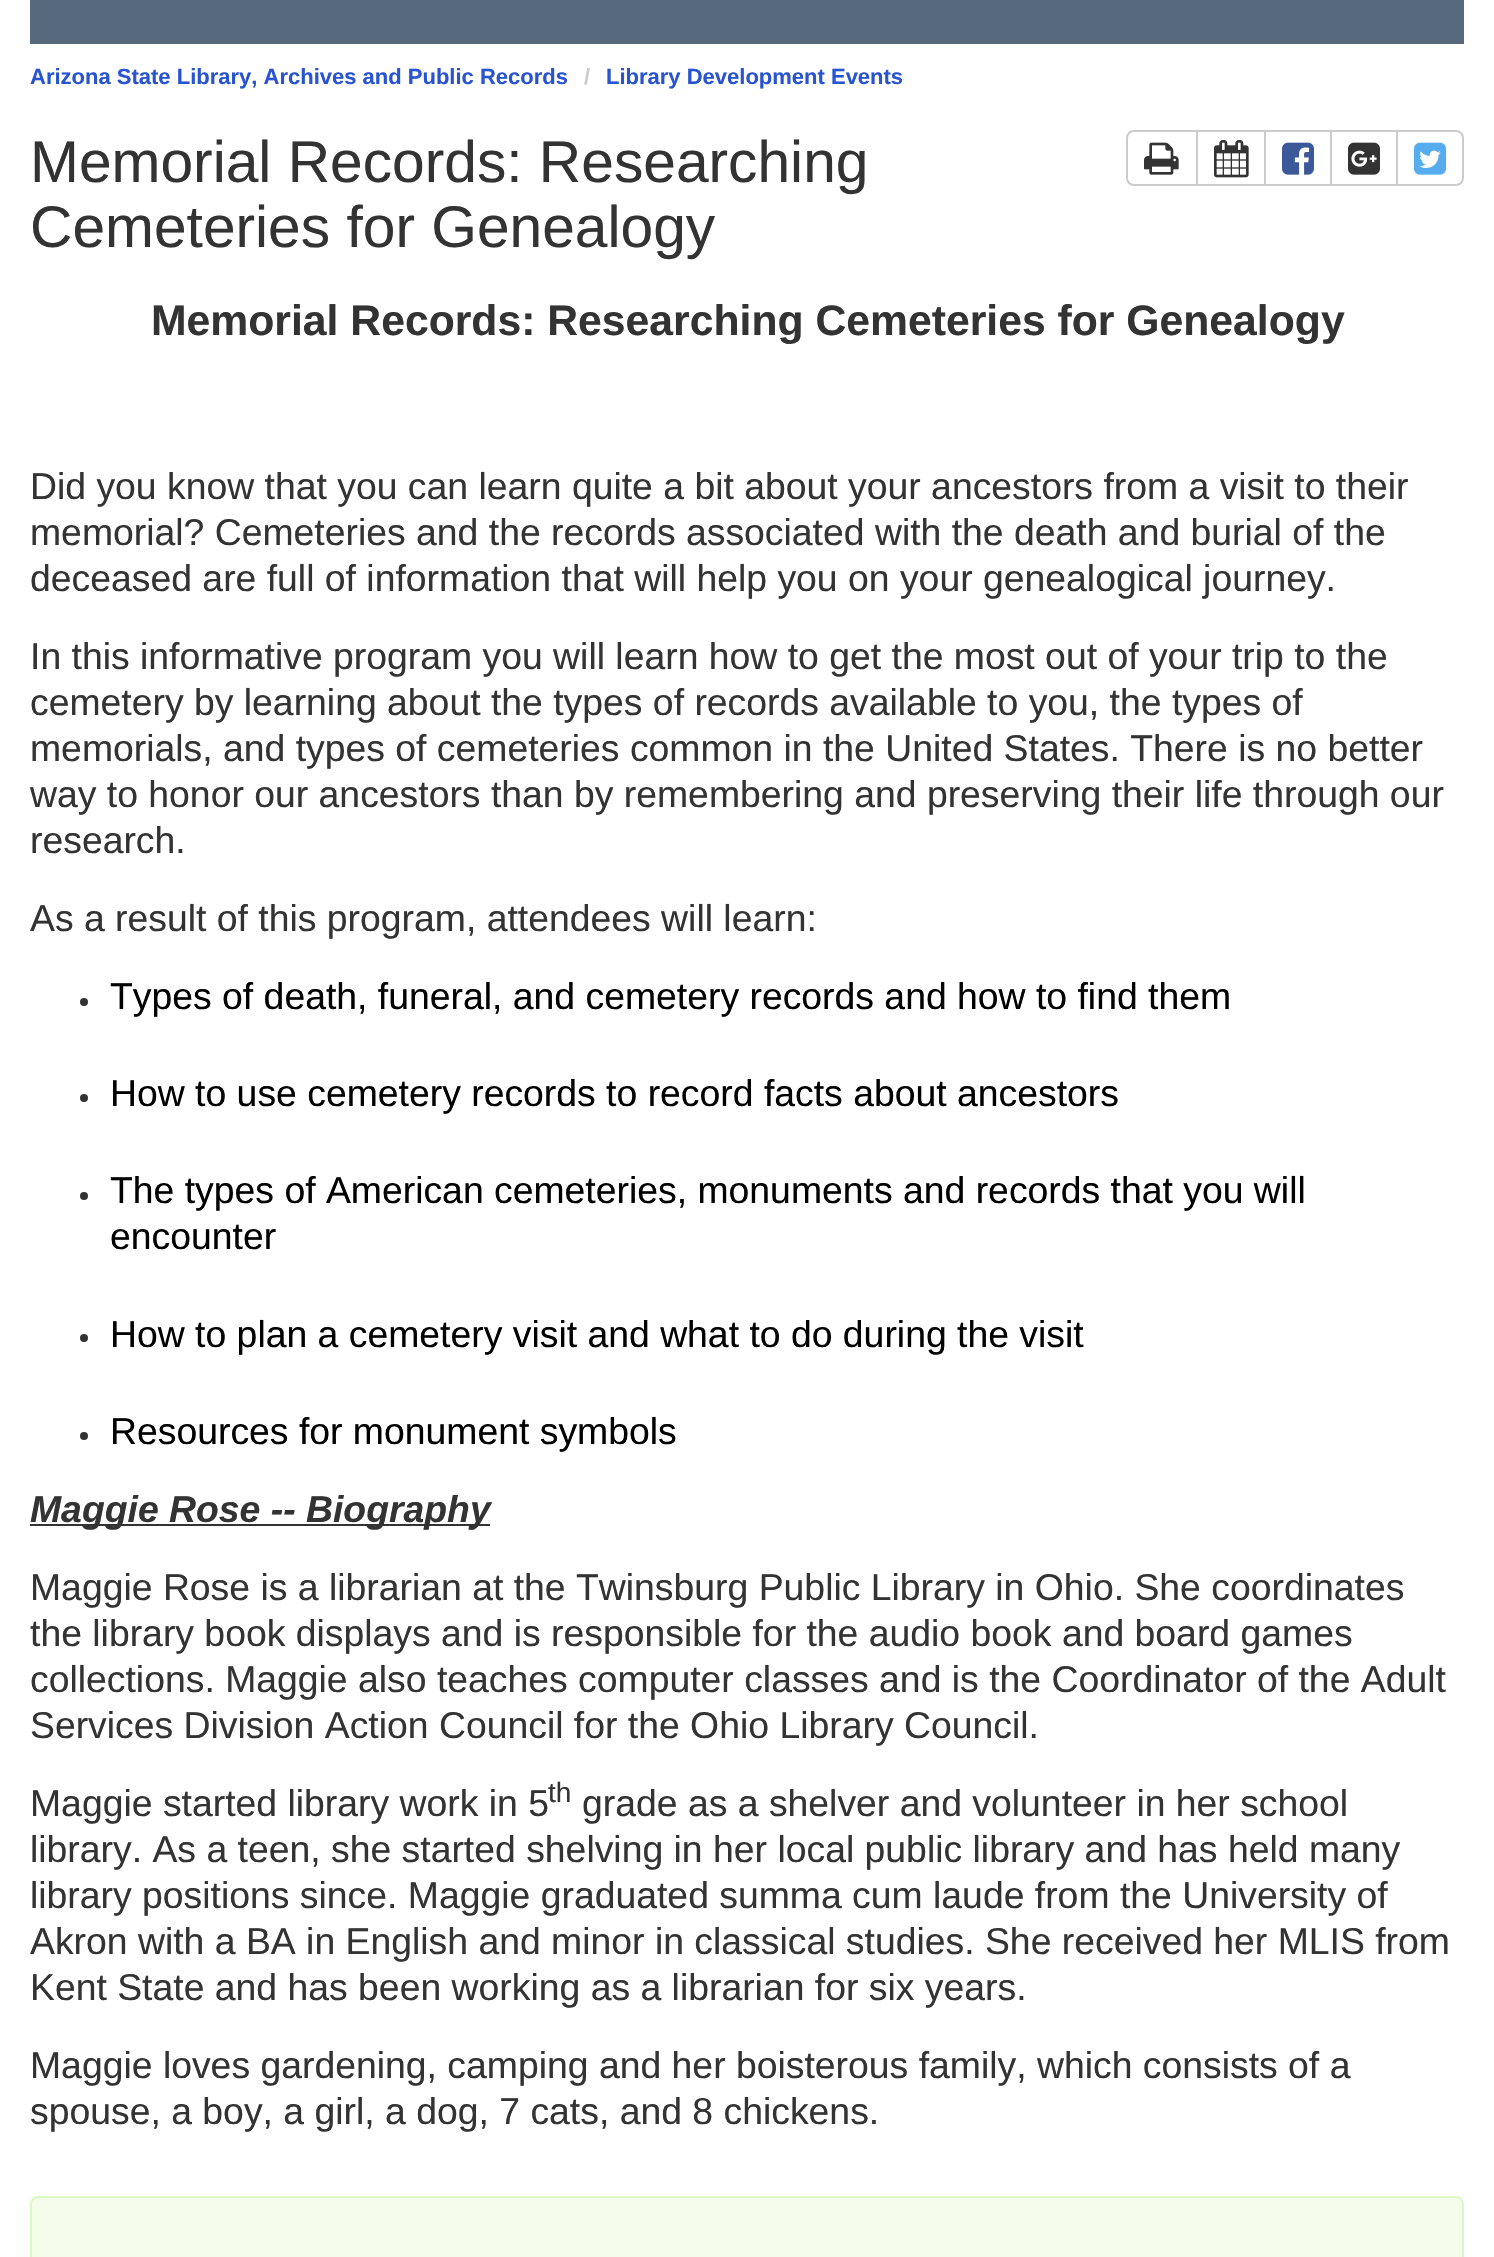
void draw(SkCanvas* canvas) {
    SkPaint paint;
    paint.setAntiAlias(true);
    canvas->clear(0xFFFFFFFF);
    paint.setColor(0xFF56697D);
    canvas->drawRect(SkRect::MakeXYWH(30, 0, 1434, 44), paint);
    SkFont font1(fontMgr->matchFamilyStyle("Liberation Sans", SkFontStyle::Bold()), 22);
    font1.setSubpixel(true);
    paint.setColor(0xFF2954D1);
    canvas->drawString("Arizona State Library, Archives and Public Records", 30, 84, font1, paint);
    paint.setColor(0xFFCCCCCC);
    canvas->drawString("/", 584, 84, font1, paint);
    paint.setColor(0xFF2954D1);
    canvas->drawString("Library Development Events", 606, 84, font1, paint);
    SkFont font2(fontMgr->matchFamilyStyle("Liberation Sans", SkFontStyle::Normal()), 58.7f);
    font2.setSubpixel(true);
    paint.setColor(0xFF333333);
    canvas->drawString("Memorial Records: Researching", 30, 182, font2, paint);
    canvas->drawString("Cemeteries for Genealogy", 30, 247, font2, paint);
    paint.setStyle(SkPaint::kStroke_Style);
    paint.setStrokeWidth(2);
    paint.setColor(0xFFCCCCCC);
    canvas->drawPath(SkPathBuilder().moveTo(1134, 131).lineTo(1197, 131).lineTo(1197, 185).lineTo(1134, 185).cubicTo(1130, 185, 1127, 182, 1127, 178).lineTo(1127, 138).cubicTo(1127, 134, 1130, 131, 1134, 131).close().detach(), paint);
    canvas->drawImageRect(SkImages::DeferredFromEncodedData(SkData::MakeFromFileName("img1.png")), SkRect::MakeXYWH(1144, 142, 35, 33), SkSamplingOptions());
    canvas->drawRect(SkRect::MakeXYWH(1197, 131, 68, 54), paint);
    canvas->drawImageRect(SkImages::DeferredFromEncodedData(SkData::MakeFromFileName("img2.png")), SkRect::MakeXYWH(1214, 140, 35, 38), SkSamplingOptions());
    canvas->drawRect(SkRect::MakeXYWH(1265, 131, 66, 54), paint);
    canvas->drawImageRect(SkImages::DeferredFromEncodedData(SkData::MakeFromFileName("img3.png")), SkRect::MakeXYWH(1282, 142, 32, 33), SkSamplingOptions());
    canvas->drawRect(SkRect::MakeXYWH(1331, 131, 66, 54), paint);
    canvas->drawImageRect(SkImages::DeferredFromEncodedData(SkData::MakeFromFileName("img4.png")), SkRect::MakeXYWH(1348, 142, 32, 33), SkSamplingOptions());
    paint.setStyle(SkPaint::kFill_Style);
    paint.setColor(0xFFFFFFFF);
    canvas->drawPath(SkPathBuilder().moveTo(1397, 131).lineTo(1456, 131).cubicTo(1460, 131, 1463, 134, 1463, 138).lineTo(1463, 178).cubicTo(1463, 182, 1460, 185, 1456, 185).lineTo(1397, 185).close().detach(), paint);
    paint.setStyle(SkPaint::kStroke_Style);
    paint.setColor(0xFFCCCCCC);
    canvas->drawPath(SkPathBuilder().moveTo(1397, 131).lineTo(1456, 131).cubicTo(1460, 131, 1463, 134, 1463, 138).lineTo(1463, 178).cubicTo(1463, 182, 1460, 185, 1456, 185).lineTo(1397, 185).close().detach(), paint);
    canvas->drawImageRect(SkImages::DeferredFromEncodedData(SkData::MakeFromFileName("img5.png")), SkRect::MakeXYWH(1414, 142, 32, 33), SkSamplingOptions());
    SkFont font3(fontMgr->matchFamilyStyle("Liberation Sans", SkFontStyle::Bold()), 42.7f);
    font3.setSubpixel(true);
    paint.setStyle(SkPaint::kFill_Style);
    paint.setColor(0xFF333333);
    canvas->drawString("Memorial Records: Researching Cemeteries for Genealogy", 151, 335, font3, paint);
    SkFont font4(fontMgr->matchFamilyStyle("Liberation Sans", SkFontStyle::Normal()), 37.35f);
    font4.setSubpixel(true);
    canvas->drawString("Did you know that you can learn quite a bit about your ancestors from a visit to their", 30, 499, font4, paint);
    canvas->drawString("memorial? Cemeteries and the records associated with the death and burial of the", 30, 545, font4, paint);
    canvas->drawString("deceased are full of information that will help you on your genealogical journey.", 30, 591, font4, paint);
    canvas->drawString("In this informative program you will learn how to get the most out of your trip to the", 30, 669, font4, paint);
    canvas->drawString("cemetery by learning about the types of records available to you, the types of", 30, 715, font4, paint);
    canvas->drawString("memorials, and types of cemeteries common in the United States. There is no better", 30, 761, font4, paint);
    canvas->drawString("way to honor our ancestors than by remembering and preserving their life through our", 30, 807, font4, paint);
    canvas->drawString("research.", 30, 853, font4, paint);
    canvas->drawString("As a result of this program, attendees will learn:", 30, 931, font4, paint);
    canvas->drawCircle(84, 1002, 4, paint);
    paint.setColor(0xFF000000);
    canvas->drawString("Types of death, funeral, and cemetery records and how to find them", 110, 1009, font4, paint);
    paint.setColor(0xFF333333);
    canvas->drawCircle(84, 1098, 4, paint);
    paint.setColor(0xFF000000);
    canvas->drawString("How to use cemetery records to record facts about ancestors", 110, 1106, font4, paint);
    paint.setColor(0xFF333333);
    canvas->drawCircle(84, 1196, 4, paint);
    paint.setColor(0xFF000000);
    canvas->drawString("The types of American cemeteries, monuments and records that you will", 110, 1203, font4, paint);
    canvas->drawString("encounter", 110, 1249, font4, paint);
    paint.setColor(0xFF333333);
    canvas->drawCircle(84, 1338, 4, paint);
    paint.setColor(0xFF000000);
    canvas->drawString("How to plan a cemetery visit and what to do during the visit", 110, 1347, font4, paint);
    paint.setColor(0xFF333333);
    canvas->drawCircle(84, 1436, 4, paint);
    paint.setColor(0xFF000000);
    canvas->drawString("Resources for monument symbols", 110, 1444, font4, paint);
    paint.setColor(0xFF333333);
    canvas->drawRect(SkRect::MakeXYWH(30, 1524, 460, 2), paint);
    SkFont font5(fontMgr->matchFamilyStyle("Liberation Sans", SkFontStyle::BoldItalic()), 37.35f);
    font5.setSubpixel(true);
    canvas->drawString("Maggie Rose -- Biography", 30, 1522, font5, paint);
    canvas->drawString("Maggie Rose is a librarian at the Twinsburg Public Library in Ohio. She coordinates", 30, 1600, font4, paint);
    canvas->drawString("the library book displays and is responsible for the audio book and board games", 30, 1646, font4, paint);
    canvas->drawString("collections. Maggie also teaches computer classes and is the Coordinator of the Adult", 30, 1692, font4, paint);
    canvas->drawString("Services Division Action Council for the Ohio Library Council.", 30, 1738, font4, paint);
    canvas->drawString("Maggie started library work in 5", 30, 1816, font4, paint);
    SkFont font6(fontMgr->matchFamilyStyle("Liberation Sans", SkFontStyle::Normal()), 28);
    font6.setSubpixel(true);
    canvas->drawString("th", 548, 1802, font6, paint);
    canvas->drawString("grade as a shelver and volunteer in her school", 582, 1816, font4, paint);
    canvas->drawString("library. As a teen, she started shelving in her local public library and has held many", 30, 1862, font4, paint);
    canvas->drawString("library positions since. Maggie graduated summa cum laude from the University of", 30, 1908, font4, paint);
    canvas->drawString("Akron with a BA in English and minor in classical studies. She received her MLIS from", 30, 1954, font4, paint);
    canvas->drawString("Kent State and has been working as a librarian for six years.", 30, 2000, font4, paint);
    canvas->drawString("Maggie loves gardening, camping and her boisterous family, which consists of a", 30, 2078, font4, paint);
    canvas->drawString("spouse, a boy, a girl, a dog, 7 cats, and 8 chickens.", 30, 2124, font4, paint);
    paint.setColor(0xFFF3FDEA);
    canvas->drawRoundRect(SkRect::MakeXYWH(31, 2197, 1432, 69), 7, 7, paint);
    paint.setStyle(SkPaint::kStroke_Style);
    paint.setColor(0xFFDAF9C2);
    canvas->drawRoundRect(SkRect::MakeXYWH(31, 2197, 1432, 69), 7, 7, paint);
}
